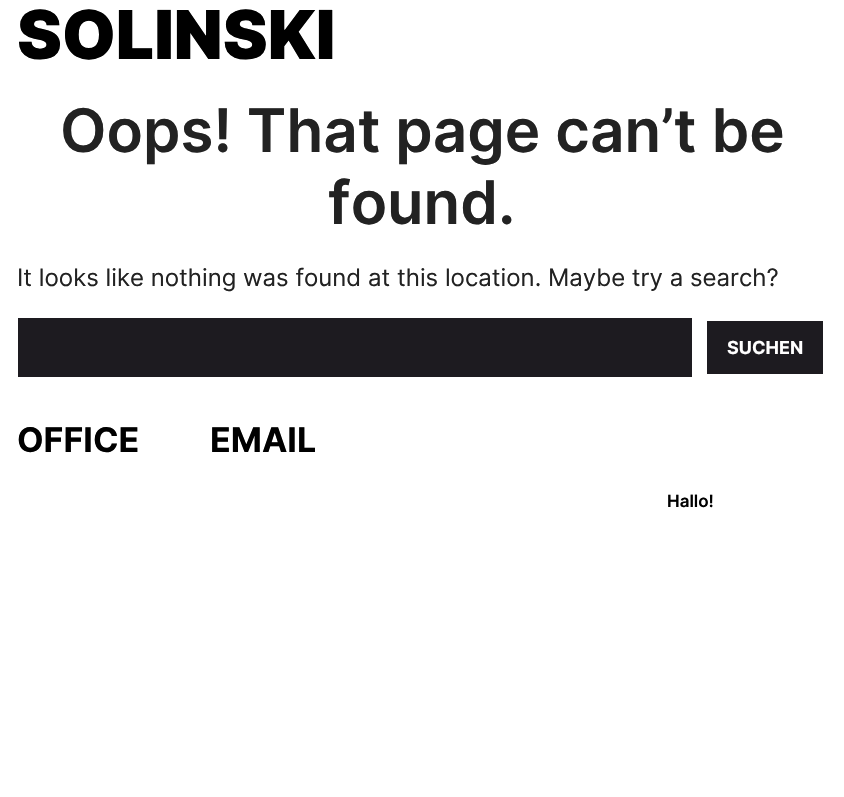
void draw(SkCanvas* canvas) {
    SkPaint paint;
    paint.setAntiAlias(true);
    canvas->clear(0xFFFFFFFF);
    SkFont font1(fontMgr->matchFamilyStyle("Inter", SkFontStyle(900, SkFontStyle::kNormal_Width, SkFontStyle::kUpright_Slant)), 67.5f);
    font1.setSubpixel(true);
    paint.setColor(0xFF000000);
    canvas->drawString("SOLINSKI", 17, 59, font1, paint);
    SkFont font2(fontMgr->matchFamilyStyle("Inter", SkFontStyle(600, SkFontStyle::kNormal_Width, SkFontStyle::kUpright_Slant)), 60);
    font2.setSubpixel(true);
    paint.setColor(0xFF222222);
    canvas->drawString("Oops! That page can’t be", 60, 152, font2, paint);
    canvas->drawString("found.", 328, 224, font2, paint);
    SkFont font3(fontMgr->matchFamilyStyle("Inter", SkFontStyle::Normal()), 24);
    font3.setSubpixel(true);
    canvas->drawString("It looks like nothing was found at this location. Maybe try a search?", 17, 286, font3, paint);
    paint.setColor(0xFF1D1B20);
    canvas->drawRect(SkRect::MakeXYWH(18, 318, 674, 59), paint);
    canvas->drawRect(SkRect::MakeXYWH(707, 321, 116, 53), paint);
    SkFont font4(fontMgr->matchFamilyStyle("Inter", SkFontStyle::Bold()), 18);
    font4.setSubpixel(true);
    paint.setColor(0xFFFFFFFF);
    canvas->drawString("SUCHEN", 727, 354, font4, paint);
    SkFont font5(fontMgr->matchFamilyStyle("Inter", SkFontStyle::Bold()), 34);
    font5.setSubpixel(true);
    paint.setColor(0xFF000000);
    canvas->drawString("OFFICE", 17, 452, font5, paint);
    canvas->drawString("EMAIL", 210, 452, font5, paint);
    SkFont font6(fontMgr->matchFamilyStyle("Inter", SkFontStyle(600, SkFontStyle::kNormal_Width, SkFontStyle::kUpright_Slant)), 17);
    font6.setSubpixel(true);
    canvas->drawString("Hallo!", 667, 507, font6, paint);
}
